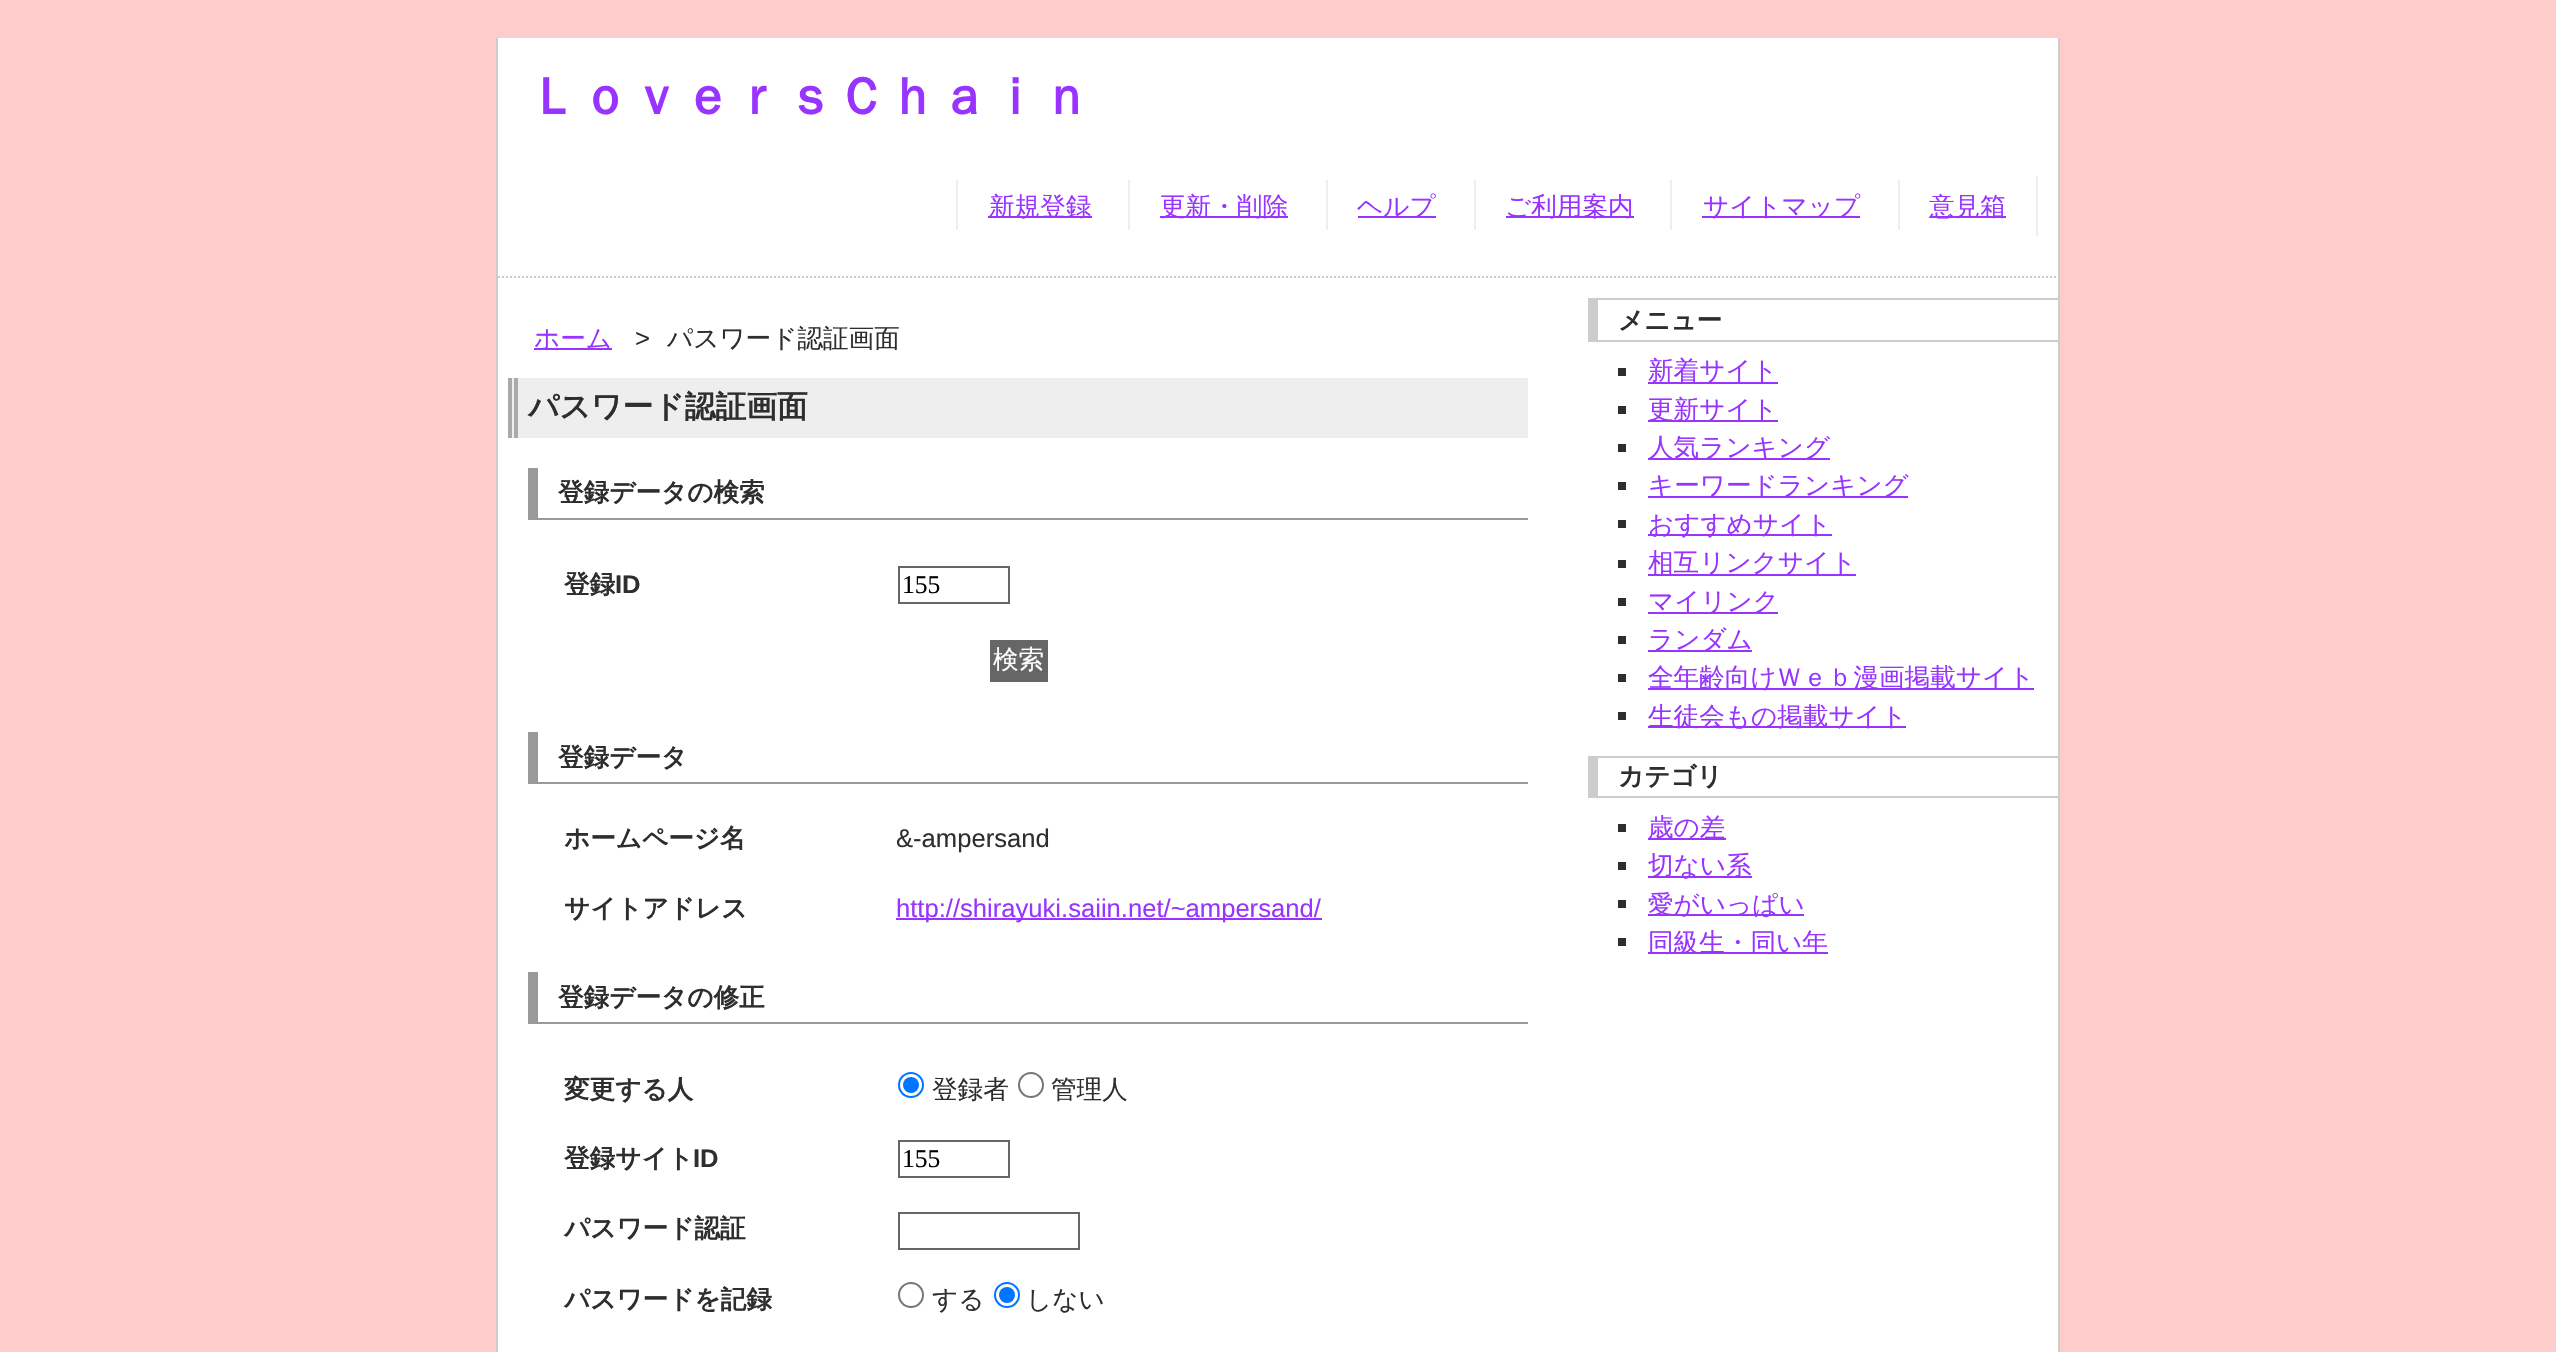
void draw(SkCanvas* canvas) {
    SkPaint paint;
    paint.setAntiAlias(true);
    canvas->clear(0xFFFFCCCC);
    paint.setColor(0xFFFFFFFF);
    canvas->drawRect(SkRect::MakeXYWH(498, 38, 1560, 1314), paint);
    paint.setColor(0xFFCCCCCC);
    canvas->drawRect(SkRect::MakeXYWH(2058, 38, 2, 1314), paint);
    canvas->drawRect(SkRect::MakeXYWH(496, 38, 2, 1314), paint);
    SkFont font1(fontMgr->matchFamilyStyle("WenQuanYi Zen Hei", SkFontStyle::Bold()), 51.25f);
    font1.setSubpixel(true);
    paint.setColor(0xFF9933FF);
    canvas->drawString("ＬｏｖｅｒｓＣｈａｉｎ", 528, 114, font1, paint);
    paint.setStyle(SkPaint::kStroke_Style);
    paint.setStrokeWidth(2);
    paint.setColor(0xFFCCCCCC);
    paint.setPathEffect(SkDashPathEffect::Make({{2, 2}}, 0));
    canvas->drawPath(SkPathBuilder().moveTo(498, 277).lineTo(2058, 277).detach(), paint);
    paint.setPathEffect(nullptr);
    paint.setStyle(SkPaint::kFill_Style);
    paint.setColor(0xFFEEEEEE);
    canvas->drawRect(SkRect::MakeXYWH(2036, 176, 2, 60), paint);
    paint.setColor(0xFF9933FF);
    canvas->drawRect(SkRect::MakeXYWH(988, 216, 104, 2), paint);
    SkFont font2(fontMgr->matchFamilyStyle("WenQuanYi Zen Hei", SkFontStyle(500, SkFontStyle::kNormal_Width, SkFontStyle::kUpright_Slant)), 25.6f);
    font2.setSubpixel(true);
    canvas->drawString("新規登録", 989, 215, font2, paint);
    paint.setColor(0xFFEEEEEE);
    canvas->drawRect(SkRect::MakeXYWH(956, 180, 2, 50), paint);
    paint.setColor(0xFF9933FF);
    canvas->drawRect(SkRect::MakeXYWH(1160, 216, 128, 2), paint);
    canvas->drawString("更新・削除", 1160, 215, font2, paint);
    paint.setColor(0xFFEEEEEE);
    canvas->drawRect(SkRect::MakeXYWH(1128, 180, 2, 50), paint);
    paint.setColor(0xFF9933FF);
    canvas->drawRect(SkRect::MakeXYWH(1358, 216, 78, 2), paint);
    canvas->drawString("ヘルプ", 1357, 215, font2, paint);
    paint.setColor(0xFFEEEEEE);
    canvas->drawRect(SkRect::MakeXYWH(1326, 180, 2, 50), paint);
    paint.setColor(0xFF9933FF);
    canvas->drawRect(SkRect::MakeXYWH(1506, 216, 128, 2), paint);
    canvas->drawString("ご利用案内", 1505, 215, font2, paint);
    paint.setColor(0xFFEEEEEE);
    canvas->drawRect(SkRect::MakeXYWH(1474, 180, 2, 50), paint);
    paint.setColor(0xFF9933FF);
    canvas->drawRect(SkRect::MakeXYWH(1702, 216, 158, 2), paint);
    canvas->drawString("サイトマップ", 1703, 215, font2, paint);
    paint.setColor(0xFFEEEEEE);
    canvas->drawRect(SkRect::MakeXYWH(1670, 180, 2, 50), paint);
    paint.setColor(0xFF9933FF);
    canvas->drawRect(SkRect::MakeXYWH(1930, 216, 76, 2), paint);
    canvas->drawString("意見箱", 1929, 215, font2, paint);
    paint.setColor(0xFFEEEEEE);
    canvas->drawRect(SkRect::MakeXYWH(1898, 180, 2, 50), paint);
    paint.setColor(0xFF9933FF);
    canvas->drawRect(SkRect::MakeXYWH(534, 348, 78, 2), paint);
    canvas->drawString("ホーム", 534, 347, font2, paint);
    SkFont font3(fontMgr->matchFamilyStyle("Liberation Sans", SkFontStyle::Normal()), 25.6f);
    font3.setSubpixel(true);
    paint.setColor(0xFF2E2E2E);
    canvas->drawString(">", 635, 347, font3, paint);
    canvas->drawString("パスワード認証画面", 667, 347, font2, paint);
    paint.setColor(0xFFEEEEEE);
    canvas->drawRect(SkRect::MakeXYWH(512, 378, 1016, 60), paint);
    paint.setColor(0xFFAAAAAA);
    canvas->drawRect(SkRect::MakeXYWH(508, 378, 4, 60), paint);
    canvas->drawRect(SkRect::MakeXYWH(514, 378, 4, 60), paint);
    SkFont font4(fontMgr->matchFamilyStyle("WenQuanYi Zen Hei", SkFontStyle::Bold()), 30.75f);
    font4.setSubpixel(true);
    paint.setColor(0xFF2E2E2E);
    canvas->drawString("パスワード認証画面", 528, 417, font4, paint);
    paint.setColor(0xFF999999);
    canvas->drawRect(SkRect::MakeXYWH(538, 518, 990, 2), paint);
    canvas->drawRect(SkRect::MakeXYWH(528, 468, 10, 52), paint);
    SkFont font5(fontMgr->matchFamilyStyle("WenQuanYi Zen Hei", SkFontStyle::Bold()), 25.6f);
    font5.setSubpixel(true);
    paint.setColor(0xFF2E2E2E);
    canvas->drawString("登録データの検索", 558, 501, font5, paint);
    canvas->drawString("登録", 564, 593, font5, paint);
    SkFont font6(fontMgr->matchFamilyStyle("Liberation Sans", SkFontStyle::Bold()), 25.6f);
    font6.setSubpixel(true);
    canvas->drawString("ID", 615, 593, font6, paint);
    paint.setStyle(SkPaint::kStroke_Style);
    paint.setColor(0xFF666666);
    canvas->drawRect(SkRect::MakeXYWH(899, 567, 110, 36), paint);
    SkFont font7(fontMgr->matchFamilyStyle("Liberation Serif", SkFontStyle::Normal()), 25.6f);
    font7.setSubpixel(true);
    paint.setStyle(SkPaint::kFill_Style);
    paint.setColor(0xFF000000);
    canvas->drawString("155", 902, 593, font7, paint);
    paint.setColor(0xFF666666);
    canvas->drawRect(SkRect::MakeXYWH(990, 640, 58, 42), paint);
    paint.setColor(0xFFFFFFFF);
    canvas->drawString("検索", 993, 668, font2, paint);
    paint.setColor(0xFF999999);
    canvas->drawRect(SkRect::MakeXYWH(538, 782, 990, 2), paint);
    canvas->drawRect(SkRect::MakeXYWH(528, 732, 10, 52), paint);
    paint.setColor(0xFF2E2E2E);
    canvas->drawString("登録データ", 558, 766, font5, paint);
    canvas->drawString("ホームページ名", 564, 847, font5, paint);
    canvas->drawString("&-ampersand", 896, 847, font3, paint);
    canvas->drawString("サイトアドレス", 564, 917, font5, paint);
    paint.setColor(0xFF9933FF);
    canvas->drawRect(SkRect::MakeXYWH(896, 918, 426, 2), paint);
    canvas->drawString("http://shirayuki.saiin.net/~ampersand/", 896, 917, font3, paint);
    paint.setColor(0xFF999999);
    canvas->drawRect(SkRect::MakeXYWH(538, 1022, 990, 2), paint);
    canvas->drawRect(SkRect::MakeXYWH(528, 972, 10, 52), paint);
    paint.setColor(0xFF2E2E2E);
    canvas->drawString("登録データの修正", 558, 1006, font5, paint);
    canvas->drawString("変更する人", 564, 1098, font5, paint);
    paint.setStyle(SkPaint::kStroke_Style);
    paint.setColor(0xFF0075FF);
    canvas->drawCircle(911, 1085, 12, paint);
    paint.setStyle(SkPaint::kFill_Style);
    canvas->drawCircle(911, 1085, 8, paint);
    paint.setColor(0xFF2E2E2E);
    canvas->drawString("登録者", 932, 1098, font2, paint);
    paint.setStyle(SkPaint::kStroke_Style);
    paint.setColor(0xFF767676);
    canvas->drawCircle(1031, 1085, 12, paint);
    paint.setStyle(SkPaint::kFill_Style);
    paint.setColor(0xFF2E2E2E);
    canvas->drawString("管理人", 1051, 1098, font2, paint);
    canvas->drawString("登録サイト", 564, 1167, font5, paint);
    canvas->drawString("ID", 693, 1167, font6, paint);
    paint.setStyle(SkPaint::kStroke_Style);
    paint.setColor(0xFF666666);
    canvas->drawRect(SkRect::MakeXYWH(899, 1141, 110, 36), paint);
    paint.setStyle(SkPaint::kFill_Style);
    paint.setColor(0xFF000000);
    canvas->drawString("155", 902, 1167, font7, paint);
    paint.setColor(0xFF2E2E2E);
    canvas->drawString("パスワード認証", 564, 1237, font5, paint);
    paint.setStyle(SkPaint::kStroke_Style);
    paint.setColor(0xFF666666);
    canvas->drawRect(SkRect::MakeXYWH(899, 1213, 180, 36), paint);
    paint.setStyle(SkPaint::kFill_Style);
    paint.setColor(0xFF2E2E2E);
    canvas->drawString("パスワードを記録", 564, 1308, font5, paint);
    paint.setStyle(SkPaint::kStroke_Style);
    paint.setColor(0xFF767676);
    canvas->drawCircle(911, 1295, 12, paint);
    paint.setStyle(SkPaint::kFill_Style);
    paint.setColor(0xFF2E2E2E);
    canvas->drawString("する", 932, 1308, font2, paint);
    paint.setStyle(SkPaint::kStroke_Style);
    paint.setColor(0xFF0075FF);
    canvas->drawCircle(1007, 1295, 12, paint);
    paint.setStyle(SkPaint::kFill_Style);
    canvas->drawCircle(1007, 1295, 8, paint);
    paint.setColor(0xFF2E2E2E);
    canvas->drawString("しない", 1026, 1308, font2, paint);
    paint.setColor(0xFFCCCCCC);
    canvas->drawRect(SkRect::MakeXYWH(1598, 298, 460, 2), paint);
    canvas->drawRect(SkRect::MakeXYWH(1598, 340, 460, 2), paint);
    canvas->drawRect(SkRect::MakeXYWH(1588, 298, 10, 44), paint);
    paint.setColor(0xFF2E2E2E);
    canvas->drawString("メニュー", 1618, 329, font5, paint);
    canvas->drawRect(SkRect::MakeXYWH(1618, 368, 8, 8), paint);
    paint.setColor(0xFF9933FF);
    canvas->drawRect(SkRect::MakeXYWH(1648, 382, 130, 2), paint);
    canvas->drawString("新着サイト", 1648, 379, font2, paint);
    paint.setColor(0xFF2E2E2E);
    canvas->drawRect(SkRect::MakeXYWH(1618, 406, 8, 8), paint);
    paint.setColor(0xFF9933FF);
    canvas->drawRect(SkRect::MakeXYWH(1648, 420, 130, 2), paint);
    canvas->drawString("更新サイト", 1648, 418, font2, paint);
    paint.setColor(0xFF2E2E2E);
    canvas->drawRect(SkRect::MakeXYWH(1618, 444, 8, 8), paint);
    paint.setColor(0xFF9933FF);
    canvas->drawRect(SkRect::MakeXYWH(1648, 458, 182, 2), paint);
    canvas->drawString("人気ランキング", 1648, 456, font2, paint);
    paint.setColor(0xFF2E2E2E);
    canvas->drawRect(SkRect::MakeXYWH(1618, 482, 8, 8), paint);
    paint.setColor(0xFF9933FF);
    canvas->drawRect(SkRect::MakeXYWH(1648, 496, 260, 2), paint);
    canvas->drawString("キーワードランキング", 1648, 494, font2, paint);
    paint.setColor(0xFF2E2E2E);
    canvas->drawRect(SkRect::MakeXYWH(1618, 520, 8, 8), paint);
    paint.setColor(0xFF9933FF);
    canvas->drawRect(SkRect::MakeXYWH(1648, 534, 184, 2), paint);
    canvas->drawString("おすすめサイト", 1648, 533, font2, paint);
    paint.setColor(0xFF2E2E2E);
    canvas->drawRect(SkRect::MakeXYWH(1618, 560, 8, 8), paint);
    paint.setColor(0xFF9933FF);
    canvas->drawRect(SkRect::MakeXYWH(1648, 574, 208, 2), paint);
    canvas->drawString("相互リンクサイト", 1648, 571, font2, paint);
    paint.setColor(0xFF2E2E2E);
    canvas->drawRect(SkRect::MakeXYWH(1618, 598, 8, 8), paint);
    paint.setColor(0xFF9933FF);
    canvas->drawRect(SkRect::MakeXYWH(1648, 612, 130, 2), paint);
    canvas->drawString("マイリンク", 1648, 610, font2, paint);
    paint.setColor(0xFF2E2E2E);
    canvas->drawRect(SkRect::MakeXYWH(1618, 636, 8, 8), paint);
    paint.setColor(0xFF9933FF);
    canvas->drawRect(SkRect::MakeXYWH(1648, 650, 104, 2), paint);
    canvas->drawString("ランダム", 1648, 648, font2, paint);
    paint.setColor(0xFF2E2E2E);
    canvas->drawRect(SkRect::MakeXYWH(1618, 674, 8, 8), paint);
    paint.setColor(0xFF9933FF);
    canvas->drawRect(SkRect::MakeXYWH(1648, 688, 386, 2), paint);
    canvas->drawString("全年齢向けＷｅｂ漫画掲載サイト", 1648, 686, font2, paint);
    paint.setColor(0xFF2E2E2E);
    canvas->drawRect(SkRect::MakeXYWH(1618, 712, 8, 8), paint);
    paint.setColor(0xFF9933FF);
    canvas->drawRect(SkRect::MakeXYWH(1648, 726, 258, 2), paint);
    canvas->drawString("生徒会もの掲載サイト", 1648, 725, font2, paint);
    paint.setColor(0xFFCCCCCC);
    canvas->drawRect(SkRect::MakeXYWH(1598, 756, 460, 2), paint);
    canvas->drawRect(SkRect::MakeXYWH(1598, 796, 460, 2), paint);
    canvas->drawRect(SkRect::MakeXYWH(1588, 756, 10, 42), paint);
    paint.setColor(0xFF2E2E2E);
    canvas->drawString("カテゴリ", 1618, 785, font5, paint);
    canvas->drawRect(SkRect::MakeXYWH(1618, 824, 8, 8), paint);
    paint.setColor(0xFF9933FF);
    canvas->drawRect(SkRect::MakeXYWH(1648, 838, 78, 2), paint);
    canvas->drawString("歳の差", 1648, 836, font2, paint);
    paint.setColor(0xFF2E2E2E);
    canvas->drawRect(SkRect::MakeXYWH(1618, 862, 8, 8), paint);
    paint.setColor(0xFF9933FF);
    canvas->drawRect(SkRect::MakeXYWH(1648, 876, 104, 2), paint);
    canvas->drawString("切ない系", 1648, 874, font2, paint);
    paint.setColor(0xFF2E2E2E);
    canvas->drawRect(SkRect::MakeXYWH(1618, 900, 8, 8), paint);
    paint.setColor(0xFF9933FF);
    canvas->drawRect(SkRect::MakeXYWH(1648, 914, 156, 2), paint);
    canvas->drawString("愛がいっぱい", 1648, 913, font2, paint);
    paint.setColor(0xFF2E2E2E);
    canvas->drawRect(SkRect::MakeXYWH(1618, 938, 8, 8), paint);
    paint.setColor(0xFF9933FF);
    canvas->drawRect(SkRect::MakeXYWH(1648, 952, 180, 2), paint);
    canvas->drawString("同級生・同い年", 1648, 951, font2, paint);
}
